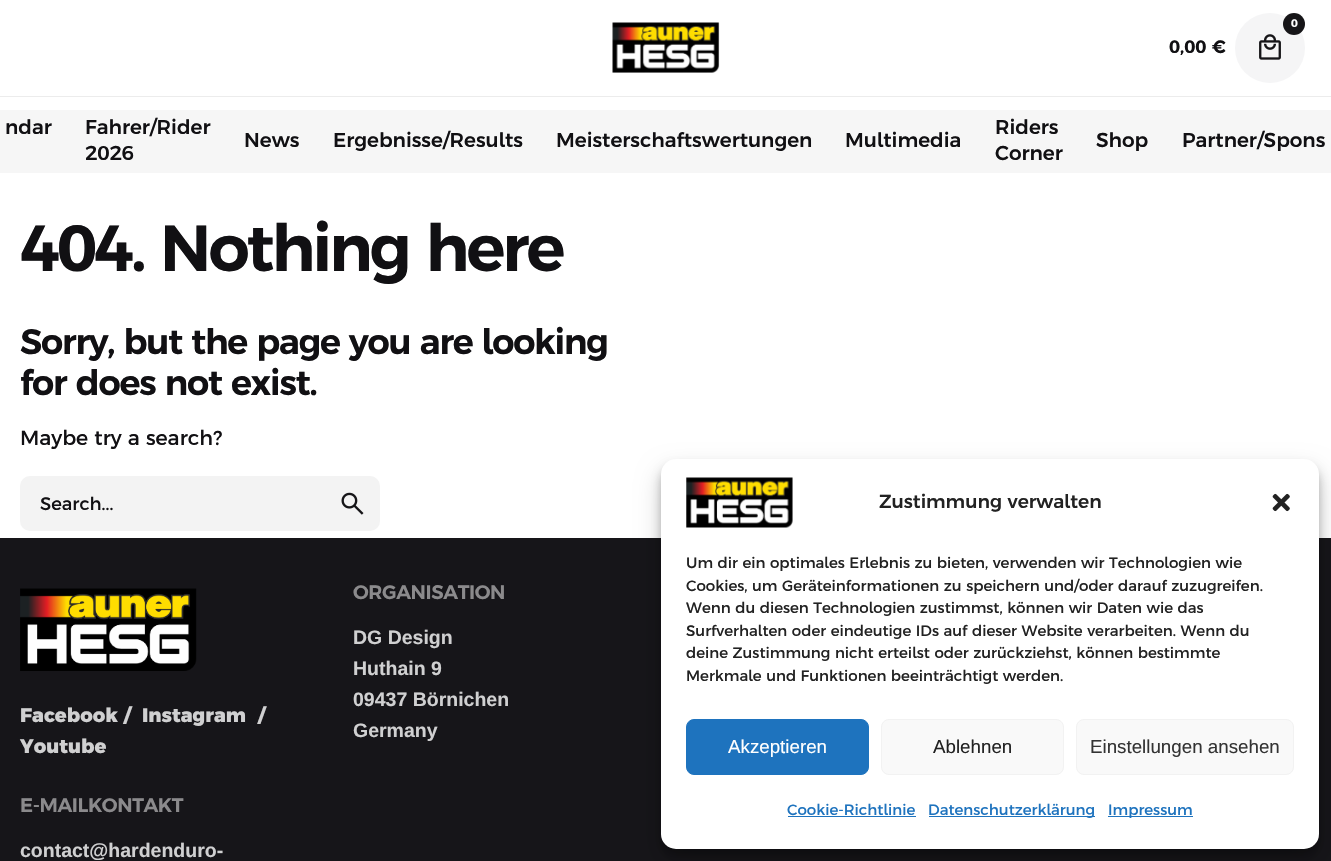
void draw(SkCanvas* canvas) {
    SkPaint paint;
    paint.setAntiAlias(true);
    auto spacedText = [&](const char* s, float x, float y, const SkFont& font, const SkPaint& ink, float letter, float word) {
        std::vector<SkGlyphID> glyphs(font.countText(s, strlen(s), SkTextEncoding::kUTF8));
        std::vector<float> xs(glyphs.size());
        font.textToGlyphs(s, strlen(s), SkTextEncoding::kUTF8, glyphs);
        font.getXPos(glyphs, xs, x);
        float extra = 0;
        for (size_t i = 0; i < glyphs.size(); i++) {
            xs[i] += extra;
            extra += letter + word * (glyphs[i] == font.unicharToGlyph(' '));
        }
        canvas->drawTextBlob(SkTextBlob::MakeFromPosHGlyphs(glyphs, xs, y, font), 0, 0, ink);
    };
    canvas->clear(0xFFFFFFFF);
    canvas->drawImageRect(SkImages::DeferredFromEncodedData(SkData::MakeFromFileName("img1.png")), SkRect::MakeXYWH(612, 22, 108, 51), SkSamplingOptions());
    paint.setColor(0xFFF5F5F6);
    canvas->drawCircle(1270, 48, 35, paint);
    canvas->drawImageRect(SkImages::DeferredFromEncodedData(SkData::MakeFromFileName("img2.png")), SkRect::MakeXYWH(1259, 34, 22, 26), SkSamplingOptions());
    paint.setColor(0xFF161518);
    canvas->drawCircle(1294, 24, 11, paint);
    SkFont font1(fontMgr->matchFamilyStyle("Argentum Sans", SkFontStyle(600, SkFontStyle::kNormal_Width, SkFontStyle::kUpright_Slant)), 11);
    font1.setSubpixel(true);
    paint.setColor(0xFFFFFFFF);
    canvas->drawString("0", 1291, 27, font1, paint);
    SkFont font2(fontMgr->matchFamilyStyle("Argentum Sans", SkFontStyle(600, SkFontStyle::kNormal_Width, SkFontStyle::kUpright_Slant)), 18);
    font2.setSubpixel(true);
    paint.setColor(0xFF111013);
    canvas->drawString("0,00 €", 1169, 53, font2, paint);
    paint.setColor(0xFFECECEC);
    canvas->drawRect(SkRect::MakeXYWH(0, 96, 1331, 1), paint);
    paint.setColor(0xFFF6F6F6);
    canvas->drawRect(SkRect::MakeXYWH(0, 110, 1331, 63), paint);
    SkFont font3(fontMgr->matchFamilyStyle("Argentum Sans", SkFontStyle(500, SkFontStyle::kNormal_Width, SkFontStyle::kUpright_Slant)), 20);
    font3.setSubpixel(true);
    paint.setColor(0xFF111013);
    canvas->drawString("ndar", 5, 134, font3, paint);
    canvas->drawString("Fahrer/Rider", 85, 134, font3, paint);
    canvas->drawString("2026", 85, 160, font3, paint);
    canvas->drawString("Riders", 995, 134, font3, paint);
    canvas->drawString("Corner", 995, 160, font3, paint);
    canvas->drawString("News", 244, 147, font3, paint);
    canvas->drawString("Ergebnisse/Results", 333, 147, font3, paint);
    canvas->drawString("Meisterschaftswertungen", 556, 147, font3, paint);
    canvas->drawString("Multimedia", 845, 147, font3, paint);
    canvas->drawString("Shop", 1096, 147, font3, paint);
    canvas->drawString("Partner/Spons", 1182, 147, font3, paint);
    SkFont font4(fontMgr->matchFamilyStyle("Argentum Sans", SkFontStyle(600, SkFontStyle::kNormal_Width, SkFontStyle::kUpright_Slant)), 65);
    font4.setSubpixel(true);
    spacedText("404. Nothing here", 20, 271, font4, paint, -2.9f, 0);
    SkFont font5(fontMgr->matchFamilyStyle("Argentum Sans", SkFontStyle(600, SkFontStyle::kNormal_Width, SkFontStyle::kUpright_Slant)), 35);
    font5.setSubpixel(true);
    spacedText("Sorry, but the page you are looking", 20, 354, font5, paint, -1.2f, 0);
    spacedText("for does not exist.", 20, 395, font5, paint, -1.2f, 0);
    SkFont font6(fontMgr->matchFamilyStyle("Argentum Sans", SkFontStyle::Normal()), 20.5f);
    font6.setSubpixel(true);
    canvas->drawString("Maybe try a search?", 20, 445, font6, paint);
    paint.setColor(0xFFF3F3F3);
    canvas->drawRoundRect(SkRect::MakeXYWH(20, 476, 360, 55), 10, 10, paint);
    SkFont font7(fontMgr->matchFamilyStyle("Argentum Sans", SkFontStyle::Normal()), 18);
    font7.setSubpixel(true);
    paint.setColor(0xFF111013);
    canvas->drawString("Search...", 40, 510, font7, paint);
    canvas->drawImageRect(SkImages::DeferredFromEncodedData(SkData::MakeFromFileName("img3.png")), SkRect::MakeXYWH(341, 492, 23, 23), SkSamplingOptions());
    paint.setColor(0xFF161519);
    canvas->drawRect(SkRect::MakeXYWH(0, 538, 1331, 323), paint);
    SkFont font8(fontMgr->matchFamilyStyle("Argentum Sans", SkFontStyle(600, SkFontStyle::kNormal_Width, SkFontStyle::kUpright_Slant)), 19.5f);
    font8.setSubpixel(true);
    paint.setColor(0xFF8B8A8C);
    spacedText("ORGANISATION", 353, 599, font8, paint, -0.4f, 0);
    SkFont font9(fontMgr->matchFamilyStyle("Liberation Sans", SkFontStyle::Bold()), 19.5f);
    font9.setSubpixel(true);
    paint.setColor(0xFFD0D0D1);
    canvas->drawString("DG Design", 353, 644, font9, paint);
    canvas->drawString("Huthain 9", 353, 675, font9, paint);
    canvas->drawString("09437 Börnichen", 353, 706, font9, paint);
    canvas->drawString("Germany", 353, 737, font9, paint);
    canvas->drawImageRect(SkImages::DeferredFromEncodedData(SkData::MakeFromFileName("img4.png")), SkRect::MakeXYWH(20, 588, 177, 83), SkSamplingOptions());
    SkFont font10(fontMgr->matchFamilyStyle("Argentum Sans", SkFontStyle(800, SkFontStyle::kNormal_Width, SkFontStyle::kUpright_Slant)), 19.5f);
    font10.setSubpixel(true);
    canvas->drawString("Facebook /", 20, 722, font10, paint);
    canvas->drawString("Instagram", 142, 722, font10, paint);
    canvas->drawString("/", 258, 722, font10, paint);
    canvas->drawString("Youtube", 20, 753, font10, paint);
    paint.setColor(0xFF8B8A8C);
    spacedText("E-MAILKONTAKT", 20, 812, font8, paint, -0.4f, 0);
    paint.setColor(0xFFD0D0D1);
    canvas->drawString("contact@hardenduro-", 20, 857, font9, paint);
    paint.setColor(0x3B000000);
    paint.setMaskFilter(SkMaskFilter::MakeBlur(kNormal_SkBlurStyle, 4));
    canvas->drawRoundRect(SkRect::MakeXYWH(661, 466, 658, 390), 15, 15, paint);
    paint.setMaskFilter(nullptr);
    paint.setColor(0x30000000);
    paint.setMaskFilter(SkMaskFilter::MakeBlur(kNormal_SkBlurStyle, 12.5f));
    canvas->drawRoundRect(SkRect::MakeXYWH(661, 471, 658, 390), 15, 15, paint);
    paint.setMaskFilter(nullptr);
    paint.setColor(0xFFFFFFFF);
    canvas->drawRoundRect(SkRect::MakeXYWH(661, 459, 658, 390), 15, 15, paint);
    canvas->drawImageRect(SkImages::DeferredFromEncodedData(SkData::MakeFromFileName("img5.png")), SkRect::MakeXYWH(686, 477, 107, 51), SkSamplingOptions());
    SkFont font11(fontMgr->matchFamilyStyle("Argentum Sans", SkFontStyle(500, SkFontStyle::kNormal_Width, SkFontStyle::kUpright_Slant)), 18.75f);
    font11.setSubpixel(true);
    paint.setColor(0xFF222222);
    canvas->drawString("Zustimmung verwalten", 879, 508, font11, paint);
    canvas->drawImageRect(SkImages::DeferredFromEncodedData(SkData::MakeFromFileName("img6.png")), SkRect::MakeXYWH(1272, 493, 18, 19), SkSamplingOptions());
    SkFont font12(fontMgr->matchFamilyStyle("Argentum Sans", SkFontStyle::Normal()), 15);
    font12.setSubpixel(true);
    canvas->drawString("Um dir ein optimales Erlebnis zu bieten, verwenden wir Technologien wie", 686, 568, font12, paint);
    canvas->drawString("Cookies, um Geräteinformationen zu speichern und/oder darauf zuzugreifen.", 686, 591, font12, paint);
    canvas->drawString("Wenn du diesen Technologien zustimmst, können wir Daten wie das", 686, 613, font12, paint);
    canvas->drawString("Surfverhalten oder eindeutige IDs auf dieser Website verarbeiten. Wenn du", 686, 636, font12, paint);
    canvas->drawString("deine Zustimmung nicht erteilst oder zurückziehst, können bestimmte", 686, 658, font12, paint);
    canvas->drawString("Merkmale und Funktionen beeinträchtigt werden.", 686, 681, font12, paint);
    paint.setColor(0xFF1E73BE);
    canvas->drawRoundRect(SkRect::MakeXYWH(686.5f, 719.5f, 182, 55), 7.5f, 7.5f, paint);
    paint.setStyle(SkPaint::kStroke_Style);
    paint.setStrokeWidth(1);
    canvas->drawRoundRect(SkRect::MakeXYWH(686.5f, 719.5f, 182, 55), 7.5f, 7.5f, paint);
    SkFont font13(fontMgr->matchFamilyStyle("Liberation Sans", SkFontStyle::Normal()), 18.75f);
    font13.setSubpixel(true);
    paint.setStyle(SkPaint::kFill_Style);
    paint.setColor(0xFFFFFFFF);
    canvas->drawString("Akzeptieren", 728, 753, font13, paint);
    paint.setColor(0xFFF9F9F9);
    canvas->drawRoundRect(SkRect::MakeXYWH(881.5f, 719.5f, 182, 55), 7.5f, 7.5f, paint);
    paint.setStyle(SkPaint::kStroke_Style);
    paint.setColor(0xFFF2F2F2);
    canvas->drawRoundRect(SkRect::MakeXYWH(881.5f, 719.5f, 182, 55), 7.5f, 7.5f, paint);
    paint.setStyle(SkPaint::kFill_Style);
    paint.setColor(0xFF222222);
    canvas->drawString("Ablehnen", 933, 753, font13, paint);
    paint.setColor(0xFFF9F9F9);
    canvas->drawRoundRect(SkRect::MakeXYWH(1076.5f, 719.5f, 217, 55), 7.5f, 7.5f, paint);
    paint.setStyle(SkPaint::kStroke_Style);
    paint.setColor(0xFFF2F2F2);
    canvas->drawRoundRect(SkRect::MakeXYWH(1076.5f, 719.5f, 217, 55), 7.5f, 7.5f, paint);
    paint.setStyle(SkPaint::kFill_Style);
    paint.setColor(0xFF333333);
    canvas->drawString("Einstellungen ansehen", 1090, 753, font13, paint);
    paint.setColor(0xFF1E73BE);
    canvas->drawString("Cookie-Richtlinie", 787, 815, font12, paint);
    canvas->drawRect(SkRect::MakeXYWH(788, 816, 128, 1), paint);
    canvas->drawRect(SkRect::MakeXYWH(929, 816, 166, 1), paint);
    canvas->drawString("Datenschutzerklärung", 928, 815, font12, paint);
    canvas->drawRect(SkRect::MakeXYWH(1108, 816, 85, 1), paint);
    canvas->drawString("Impressum", 1108, 815, font12, paint);
}
